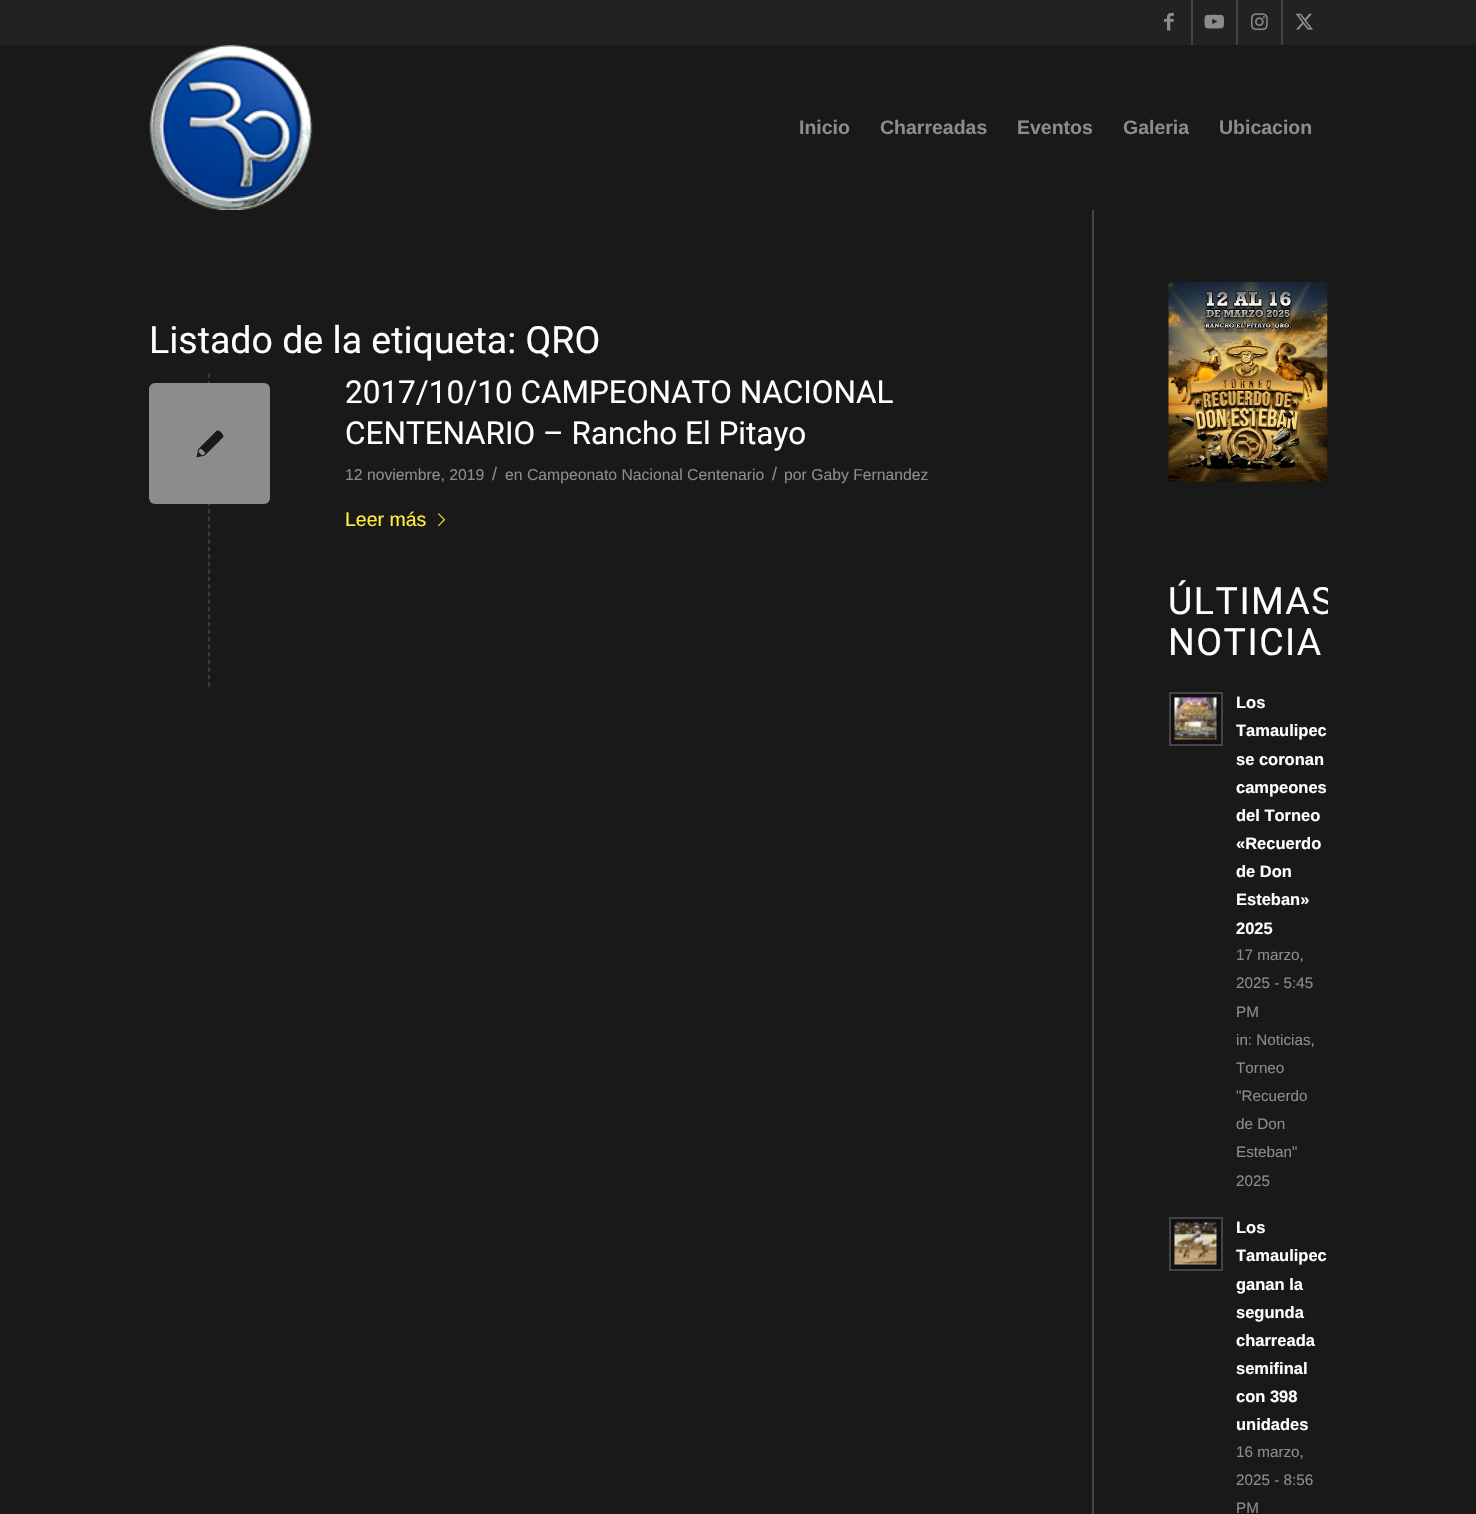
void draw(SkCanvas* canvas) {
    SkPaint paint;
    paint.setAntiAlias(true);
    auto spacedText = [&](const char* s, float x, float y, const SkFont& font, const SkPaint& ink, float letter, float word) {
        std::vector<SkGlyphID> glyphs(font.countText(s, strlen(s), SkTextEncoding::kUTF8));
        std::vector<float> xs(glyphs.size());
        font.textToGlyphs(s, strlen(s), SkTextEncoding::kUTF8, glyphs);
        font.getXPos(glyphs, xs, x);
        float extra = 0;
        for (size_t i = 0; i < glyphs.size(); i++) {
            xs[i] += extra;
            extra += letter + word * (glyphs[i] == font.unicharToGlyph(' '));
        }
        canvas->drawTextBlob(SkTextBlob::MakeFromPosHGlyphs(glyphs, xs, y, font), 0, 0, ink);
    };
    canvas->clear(0xFF191919);
    paint.setColor(0xFF222222);
    canvas->drawRect(SkRect::MakeXYWH(0, 0, 1476, 45), paint);
    paint.setColor(0xFF444444);
    canvas->drawRect(SkRect::MakeXYWH(1191, 0, 2, 45), paint);
    canvas->drawImageRect(SkImages::DeferredFromEncodedData(SkData::MakeFromFileName("img1.png")), SkRect::MakeXYWH(1164, 12, 10, 19), SkSamplingOptions());
    canvas->drawRect(SkRect::MakeXYWH(1236, 0, 2, 45), paint);
    canvas->drawImageRect(SkImages::DeferredFromEncodedData(SkData::MakeFromFileName("img2.png")), SkRect::MakeXYWH(1204, 14, 20, 15), SkSamplingOptions());
    canvas->drawRect(SkRect::MakeXYWH(1281, 0, 2, 45), paint);
    canvas->drawImageRect(SkImages::DeferredFromEncodedData(SkData::MakeFromFileName("img3.png")), SkRect::MakeXYWH(1251, 13, 17, 18), SkSamplingOptions());
    canvas->drawImageRect(SkImages::DeferredFromEncodedData(SkData::MakeFromFileName("img4.png")), SkRect::MakeXYWH(1295, 13, 18, 17), SkSamplingOptions());
    canvas->drawImageRect(SkImages::DeferredFromEncodedData(SkData::MakeFromFileName("img5.png")), SkRect::MakeXYWH(149, 45, 164, 165), SkSamplingOptions());
    SkFont font1(fontMgr->matchFamilyStyle("Liberation Sans", SkFontStyle::Bold()), 19.5f);
    font1.setSubpixel(true);
    paint.setColor(0xFF8C8C8C);
    canvas->drawString("Inicio", 799, 134, font1, paint);
    canvas->drawString("Charreadas", 880, 134, font1, paint);
    canvas->drawString("Eventos", 1017, 134, font1, paint);
    canvas->drawString("Galeria", 1123, 134, font1, paint);
    canvas->drawString("Ubicacion", 1219, 134, font1, paint);
    paint.setColor(0xFF444444);
    canvas->drawRect(SkRect::MakeXYWH(1092, 207, 2, 1307), paint);
    paint.setColor(0xFF191919);
    canvas->drawRect(SkRect::MakeXYWH(1092, 207, 2, 3), paint);
    SkFont font2(fontMgr->matchFamilyStyle("Roboto", SkFontStyle::Normal()), 37.5f);
    font2.setSubpixel(true);
    paint.setColor(0xFFFFFFFF);
    canvas->drawString("Listado de la etiqueta: QRO", 149, 353, font2, paint);
    paint.setStyle(SkPaint::kStroke_Style);
    paint.setStrokeWidth(1.5f);
    paint.setColor(0xFF444444);
    paint.setPathEffect(SkDashPathEffect::Make({{4.5f, 3.03f}}, 0));
    canvas->drawPath(SkPathBuilder().moveTo(209, 373.5f).lineTo(209, 687).detach(), paint);
    paint.setPathEffect(nullptr);
    SkFont font3(fontMgr->matchFamilyStyle("Roboto", SkFontStyle::Normal()), 31.5f);
    font3.setSubpixel(true);
    paint.setStyle(SkPaint::kFill_Style);
    paint.setColor(0xFFFFFFFF);
    canvas->drawString("2017/10/10 CAMPEONATO NACIONAL", 345, 403, font3, paint);
    canvas->drawString("CENTENARIO – Rancho El Pitayo", 345, 444, font3, paint);
    SkFont font4(fontMgr->matchFamilyStyle("Liberation Sans", SkFontStyle::Normal()), 15.75f);
    font4.setSubpixel(true);
    paint.setColor(0xFF8C8C8C);
    canvas->drawString("12 noviembre, 2019", 345, 480, font4, paint);
    SkFont font5(fontMgr->matchFamilyStyle("Liberation Sans", SkFontStyle::Normal()), 18);
    font5.setSubpixel(true);
    canvas->drawString("/", 492, 480, font5, paint);
    canvas->drawString("en Campeonato Nacional Centenario", 505, 480, font4, paint);
    canvas->drawString("/", 772, 480, font5, paint);
    canvas->drawString("por Gaby Fernandez", 784, 480, font4, paint);
    SkFont font6(fontMgr->matchFamilyStyle("Liberation Sans", SkFontStyle::Normal()), 19.5f);
    font6.setSubpixel(true);
    paint.setColor(0xFFFFEE38);
    canvas->drawString("Leer más", 345, 526, font6, paint);
    canvas->drawImageRect(SkImages::DeferredFromEncodedData(SkData::MakeFromFileName("img6.png")), SkRect::MakeXYWH(438, 513, 7, 14), SkSamplingOptions());
    paint.setColor(0xFF8C8C8C);
    canvas->drawRoundRect(SkRect::MakeXYWH(149, 383, 121, 121), 6, 6, paint);
    canvas->drawImageRect(SkImages::DeferredFromEncodedData(SkData::MakeFromFileName("img7.png")), SkRect::MakeXYWH(196, 430, 28, 28), SkSamplingOptions());
    canvas->drawImageRect(SkImages::DeferredFromEncodedData(SkData::MakeFromFileName("img8.png")), SkRect::MakeXYWH(1168, 282, 160, 200), SkSamplingOptions());
    canvas->save();
    canvas->clipRect(SkRect::MakeXYWH(1094, 207, 234, 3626));
    paint.setColor(0xFFFFFFFF);
    spacedText("ÚLTIMAS", 1168, 614, font2, paint, 1.5f, 0);
    canvas->restore();
    spacedText("NOTICIA", 1168, 655, font2, paint, 1.5f, 0);
    paint.setColor(0xFF111111);
    canvas->drawRect(SkRect::MakeXYWH(1170, 693, 52, 52), paint);
    paint.setStyle(SkPaint::kStroke_Style);
    paint.setStrokeWidth(2);
    paint.setColor(0xFF444444);
    canvas->drawRect(SkRect::MakeXYWH(1170, 693, 52, 52), paint);
    canvas->drawImageRect(SkImages::DeferredFromEncodedData(SkData::MakeFromFileName("img9.png")), SkRect::MakeXYWH(1174, 697, 43, 43), SkSamplingOptions());
    SkFont font7(fontMgr->matchFamilyStyle("Liberation Sans", SkFontStyle::Bold()), 16.5f);
    font7.setSubpixel(true);
    paint.setStyle(SkPaint::kFill_Style);
    paint.setColor(0xFFFFFFFF);
    canvas->drawString("Los", 1236, 708, font7, paint);
    canvas->save();
    canvas->clipRect(SkRect::MakeXYWH(1236, 689, 92, 507));
    canvas->drawString("Tamaulipec", 1236, 736, font7, paint);
    canvas->restore();
    canvas->drawString("se coronan", 1236, 765, font7, paint);
    canvas->drawString("campeones", 1236, 793, font7, paint);
    canvas->drawString("del Torneo", 1236, 821, font7, paint);
    canvas->drawString("«Recuerdo", 1236, 849, font7, paint);
    canvas->drawString("de Don", 1236, 877, font7, paint);
    canvas->drawString("Esteban»", 1236, 905, font7, paint);
    canvas->drawString("2025", 1236, 934, font7, paint);
    SkFont font8(fontMgr->matchFamilyStyle("Liberation Sans", SkFontStyle::Normal()), 15.25f);
    font8.setSubpixel(true);
    paint.setColor(0xFF8C8C8C);
    canvas->drawString("17 marzo,", 1236, 960, font8, paint);
    canvas->drawString("2025 - 5:45", 1236, 988, font8, paint);
    canvas->drawString("PM", 1236, 1017, font8, paint);
    canvas->drawString("in: Noticias,", 1236, 1045, font8, paint);
    canvas->drawString("Torneo", 1236, 1073, font8, paint);
    canvas->drawString("\"Recuerdo", 1236, 1101, font8, paint);
    canvas->drawString("de Don", 1236, 1129, font8, paint);
    canvas->drawString("Esteban\"", 1236, 1157, font8, paint);
    canvas->drawString("2025", 1236, 1186, font8, paint);
    paint.setColor(0xFF111111);
    canvas->drawRect(SkRect::MakeXYWH(1170, 1218, 52, 52), paint);
    paint.setStyle(SkPaint::kStroke_Style);
    paint.setColor(0xFF444444);
    canvas->drawRect(SkRect::MakeXYWH(1170, 1218, 52, 52), paint);
    canvas->drawImageRect(SkImages::DeferredFromEncodedData(SkData::MakeFromFileName("img10.png")), SkRect::MakeXYWH(1174, 1222, 43, 43), SkSamplingOptions());
    paint.setStyle(SkPaint::kFill_Style);
    paint.setColor(0xFFFFFFFF);
    canvas->drawString("Los", 1236, 1233, font7, paint);
    canvas->save();
    canvas->clipRect(SkRect::MakeXYWH(1236, 1214, 92, 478));
    canvas->drawString("Tamaulipec", 1236, 1261, font7, paint);
    canvas->restore();
    canvas->drawString("ganan la", 1236, 1290, font7, paint);
    canvas->drawString("segunda", 1236, 1318, font7, paint);
    canvas->drawString("charreada", 1236, 1346, font7, paint);
    canvas->drawString("semifinal", 1236, 1374, font7, paint);
    canvas->drawString("con 398", 1236, 1402, font7, paint);
    canvas->drawString("unidades", 1236, 1430, font7, paint);
    paint.setColor(0xFF8C8C8C);
    canvas->drawString("16 marzo,", 1236, 1457, font8, paint);
    canvas->drawString("2025 - 8:56", 1236, 1485, font8, paint);
    canvas->drawString("PM", 1236, 1513, font8, paint);
}
